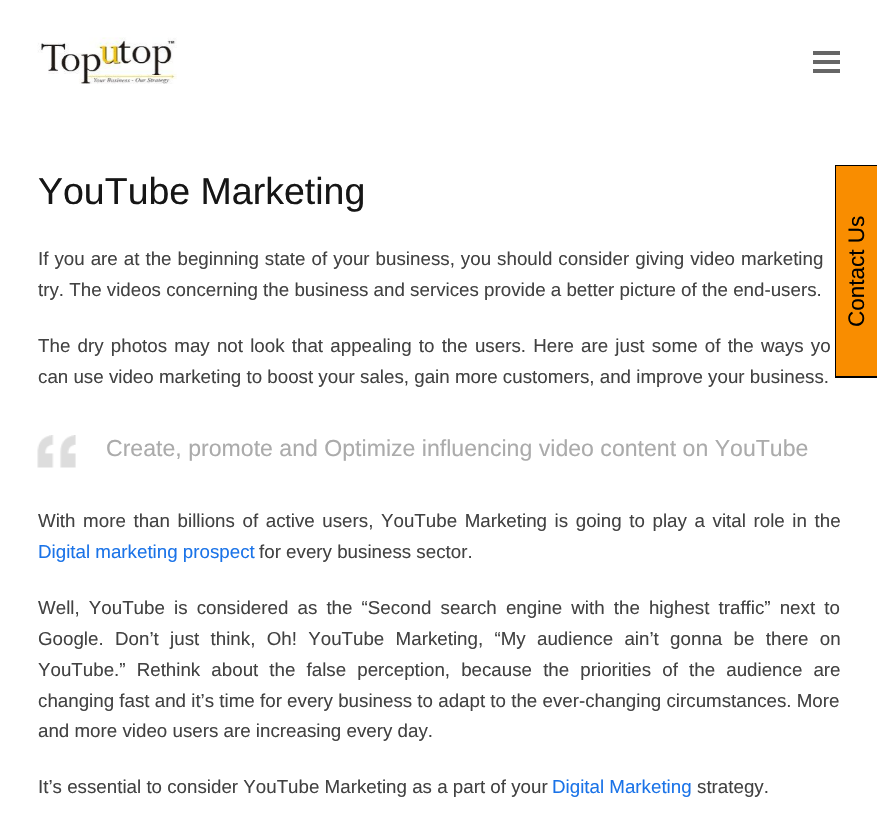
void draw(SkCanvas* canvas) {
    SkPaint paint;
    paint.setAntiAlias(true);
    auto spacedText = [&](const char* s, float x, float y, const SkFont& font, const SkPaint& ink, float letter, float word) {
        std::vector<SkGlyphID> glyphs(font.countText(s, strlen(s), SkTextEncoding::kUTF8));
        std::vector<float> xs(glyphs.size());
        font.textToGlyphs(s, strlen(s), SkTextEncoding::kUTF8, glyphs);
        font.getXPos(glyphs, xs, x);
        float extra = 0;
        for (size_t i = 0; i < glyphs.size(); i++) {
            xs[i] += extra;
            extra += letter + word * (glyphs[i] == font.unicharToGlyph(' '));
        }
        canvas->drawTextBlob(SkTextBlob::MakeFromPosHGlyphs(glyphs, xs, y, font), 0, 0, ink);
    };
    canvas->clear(0xFFFFFFFF);
    canvas->drawImageRect(SkImages::DeferredFromEncodedData(SkData::MakeFromFileName("img1.png")), SkRect::MakeXYWH(37, 37, 140, 47), SkSamplingOptions());
    paint.setColor(0xFF666666);
    canvas->drawRect(SkRect::MakeXYWH(813, 60, 27, 4), paint);
    canvas->drawRect(SkRect::MakeXYWH(813, 51, 27, 4), paint);
    canvas->drawRect(SkRect::MakeXYWH(813, 69, 27, 4), paint);
    SkFont font1(fontMgr->matchFamilyStyle("Liberation Sans", SkFontStyle::Normal()), 37.5f);
    font1.setSubpixel(true);
    paint.setColor(0xFF161616);
    canvas->drawString("YouTube Marketing", 38, 204, font1, paint);
    SkFont font2(fontMgr->matchFamilyStyle("Liberation Sans", SkFontStyle::Normal()), 18.75f);
    font2.setSubpixel(true);
    paint.setColor(0xFF424242);
    spacedText("If you are at the beginning state of your business, you should consider giving video marketing", 38, 265, font2, paint, 0, 0.8f);
    canvas->drawString("try. The videos concerning the business and services provide a better picture of the end-users.", 38, 296, font2, paint);
    spacedText("The dry photos may not look that appealing to the users. Here are just some of the ways yo", 38, 352, font2, paint, 0, 2);
    canvas->drawString("can use video marketing to boost your sales, gain more customers, and improve your business.", 38, 383, font2, paint);
    canvas->drawImageRect(SkImages::DeferredFromEncodedData(SkData::MakeFromFileName("img2.png")), SkRect::MakeXYWH(37, 435, 39, 33), SkSamplingOptions());
    SkFont font3(fontMgr->matchFamilyStyle("Liberation Sans", SkFontStyle::Normal()), 23.1f);
    font3.setSubpixel(true);
    paint.setColor(0xFFABABAB);
    canvas->drawString("Create, promote and Optimize influencing video content on YouTube", 106, 456, font3, paint);
    paint.setColor(0xFF424242);
    spacedText("With more than billions of active users, YouTube Marketing is going to play a vital role in the", 38, 527, font2, paint, 0, 2.4f);
    paint.setColor(0xFF1A73E8);
    canvas->drawString("Digital marketing prospect", 38, 558, font2, paint);
    paint.setColor(0xFF424242);
    canvas->drawString("for every business sector.", 259, 558, font2, paint);
    spacedText("Well, YouTube is considered as the “Second search engine with the highest traffic” next to", 38, 614, font2, paint, 0, 3.9f);
    spacedText("Google. Don’t just think, Oh! YouTube Marketing, “My audience ain’t gonna be there on", 38, 645, font2, paint, 0, 6.1f);
    spacedText("YouTube.” Rethink about the false perception, because the priorities of the audience are", 38, 676, font2, paint, 0, 5.9f);
    canvas->drawString("changing fast and it’s time for every business to adapt to the ever-changing circumstances. More", 38, 707, font2, paint);
    canvas->drawString("and more video users are increasing every day.", 38, 737, font2, paint);
    canvas->drawString("It’s essential to consider YouTube Marketing as a part of your", 38, 793, font2, paint);
    paint.setColor(0xFF1A73E8);
    canvas->drawString("Digital Marketing", 552, 793, font2, paint);
    paint.setColor(0xFF424242);
    canvas->drawString("strategy.", 697, 793, font2, paint);
    paint.setColor(0xFFF98D00);
    canvas->drawRect(SkRect::MakeXYWH(836, 166, 41, 210), paint);
    paint.setColor(0xFF000000);
    canvas->drawRect(SkRect::MakeXYWH(835, 165, 1, 213), paint);
    canvas->drawRect(SkRect::MakeXYWH(835, 165, 42, 1), paint);
    canvas->drawRect(SkRect::MakeXYWH(835, 376, 42, 2), paint);
    SkFont font4(fontMgr->matchFamilyStyle("Liberation Sans", SkFontStyle::Normal()), 22.5f);
    font4.setSubpixel(true);
    canvas->save();
    canvas->rotate(-90, 864, 327);
    canvas->drawString("Contact Us", 864, 327, font4, paint);
    canvas->restore();
}
